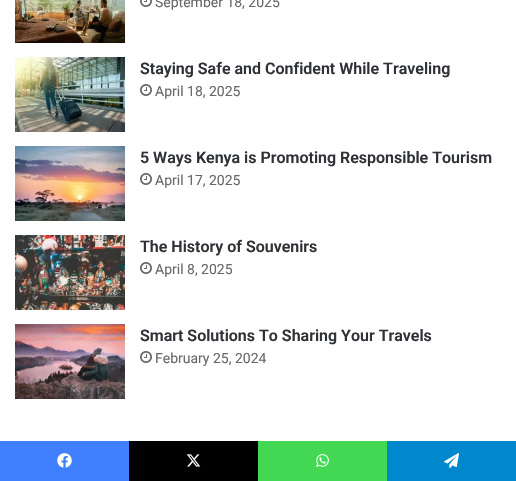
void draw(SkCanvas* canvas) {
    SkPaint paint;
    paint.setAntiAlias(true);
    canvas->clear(0xFFFFFFFF);
    canvas->drawImageRect(SkImages::DeferredFromEncodedData(SkData::MakeFromFileName("img1.png")), SkRect::MakeXYWH(15, 0, 110, 43), SkSamplingOptions());
    canvas->drawImageRect(SkImages::DeferredFromEncodedData(SkData::MakeFromFileName("img2.png")), SkRect::MakeXYWH(140, 0, 12, 7), SkSamplingOptions());
    SkFont font1(fontMgr->matchFamilyStyle("Roboto", SkFontStyle::Normal()), 14);
    font1.setSubpixel(true);
    paint.setColor(0xFF686868);
    canvas->drawString("September 18, 2025", 155, 7, font1, paint);
    canvas->drawImageRect(SkImages::DeferredFromEncodedData(SkData::MakeFromFileName("img3.png")), SkRect::MakeXYWH(15, 57, 110, 75), SkSamplingOptions());
    SkFont font2(fontMgr->matchFamilyStyle("Roboto", SkFontStyle(600, SkFontStyle::kNormal_Width, SkFontStyle::kUpright_Slant)), 16);
    font2.setSubpixel(true);
    paint.setColor(0xFF2E3136);
    canvas->drawString("Staying Safe and Confident While Traveling", 140, 74, font2, paint);
    canvas->drawImageRect(SkImages::DeferredFromEncodedData(SkData::MakeFromFileName("img4.png")), SkRect::MakeXYWH(140, 84, 12, 12), SkSamplingOptions());
    paint.setColor(0xFF686868);
    canvas->drawString("April 18, 2025", 155, 96, font1, paint);
    canvas->drawImageRect(SkImages::DeferredFromEncodedData(SkData::MakeFromFileName("img5.png")), SkRect::MakeXYWH(15, 146, 110, 75), SkSamplingOptions());
    paint.setColor(0xFF2E3136);
    canvas->drawString("5 Ways Kenya is Promoting Responsible Tourism", 140, 163, font2, paint);
    canvas->drawImageRect(SkImages::DeferredFromEncodedData(SkData::MakeFromFileName("img4.png")), SkRect::MakeXYWH(140, 173, 12, 12), SkSamplingOptions());
    paint.setColor(0xFF686868);
    canvas->drawString("April 17, 2025", 155, 185, font1, paint);
    canvas->drawImageRect(SkImages::DeferredFromEncodedData(SkData::MakeFromFileName("img6.png")), SkRect::MakeXYWH(15, 235, 110, 75), SkSamplingOptions());
    paint.setColor(0xFF2E3136);
    canvas->drawString("The History of Souvenirs", 140, 252, font2, paint);
    canvas->drawImageRect(SkImages::DeferredFromEncodedData(SkData::MakeFromFileName("img4.png")), SkRect::MakeXYWH(140, 262, 12, 12), SkSamplingOptions());
    paint.setColor(0xFF686868);
    canvas->drawString("April 8, 2025", 155, 274, font1, paint);
    canvas->drawImageRect(SkImages::DeferredFromEncodedData(SkData::MakeFromFileName("img7.png")), SkRect::MakeXYWH(15, 324, 110, 75), SkSamplingOptions());
    paint.setColor(0xFF2E3136);
    canvas->drawString("Smart Solutions To Sharing Your Travels", 140, 341, font2, paint);
    canvas->drawImageRect(SkImages::DeferredFromEncodedData(SkData::MakeFromFileName("img4.png")), SkRect::MakeXYWH(140, 351, 12, 12), SkSamplingOptions());
    paint.setColor(0xFF686868);
    canvas->drawString("February 25, 2024", 155, 363, font1, paint);
    paint.setColor(0xFF4080FF);
    canvas->drawRect(SkRect::MakeXYWH(0, 441, 129, 40), paint);
    canvas->drawImageRect(SkImages::DeferredFromEncodedData(SkData::MakeFromFileName("img8.png")), SkRect::MakeXYWH(57, 453, 15, 15), SkSamplingOptions());
    paint.setColor(0xFF000000);
    canvas->drawRect(SkRect::MakeXYWH(129, 441, 129, 40), paint);
    canvas->drawImageRect(SkImages::DeferredFromEncodedData(SkData::MakeFromFileName("img9.png")), SkRect::MakeXYWH(186, 454, 15, 13), SkSamplingOptions());
    paint.setColor(0xFF43D854);
    canvas->drawRect(SkRect::MakeXYWH(258, 441, 129, 40), paint);
    canvas->drawImageRect(SkImages::DeferredFromEncodedData(SkData::MakeFromFileName("img10.png")), SkRect::MakeXYWH(316, 454, 13, 13), SkSamplingOptions());
    paint.setColor(0xFF0088CC);
    canvas->drawRect(SkRect::MakeXYWH(387, 441, 129, 40), paint);
    canvas->drawImageRect(SkImages::DeferredFromEncodedData(SkData::MakeFromFileName("img11.png")), SkRect::MakeXYWH(444, 453, 15, 15), SkSamplingOptions());
}
